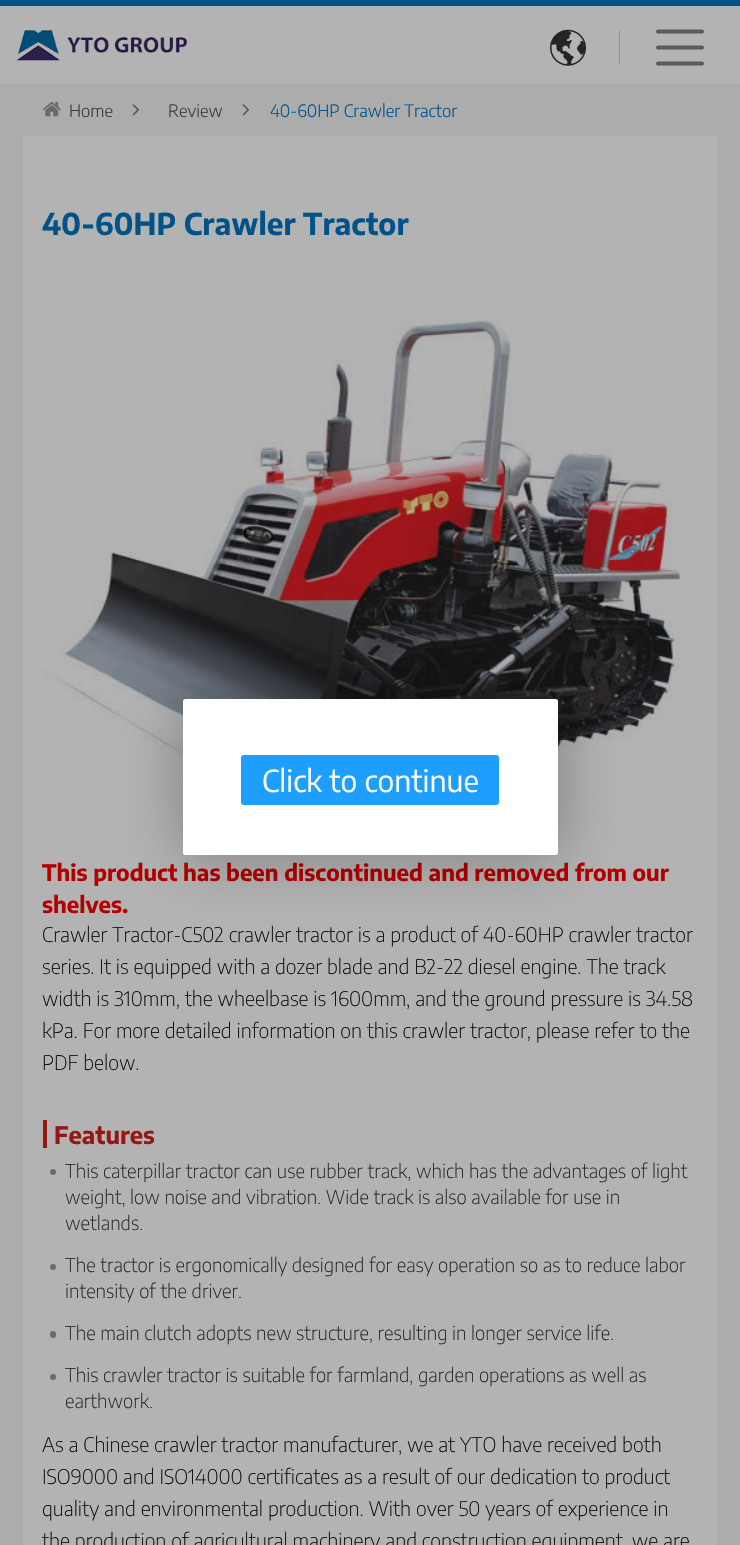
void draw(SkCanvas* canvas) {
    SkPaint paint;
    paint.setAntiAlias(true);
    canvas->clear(0xFFACACAC);
    paint.setColor(0xFFB3B3B3);
    canvas->drawRect(SkRect::MakeXYWH(0, 6, 740, 78), paint);
    paint.setColor(0xFF005288);
    canvas->drawRect(SkRect::MakeXYWH(0, 0, 740, 6), paint);
    canvas->drawImageRect(SkImages::DeferredFromEncodedData(SkData::MakeFromFileName("img1.png")), SkRect::MakeXYWH(16, 30, 171, 31), SkSamplingOptions());
    canvas->drawImageRect(SkImages::DeferredFromEncodedData(SkData::MakeFromFileName("img2.png")), SkRect::MakeXYWH(550, 29, 36, 37), SkSamplingOptions());
    paint.setColor(0xFF8F8F8F);
    canvas->drawRect(SkRect::MakeXYWH(619, 31, 1, 33), paint);
    paint.setStyle(SkPaint::kStroke_Style);
    paint.setStrokeWidth(4);
    paint.setStrokeCap(SkPaint::kRound_Cap);
    paint.setColor(0xFF5A5A5A);
    canvas->drawPath(SkPathBuilder().moveTo(658, 31.5f).lineTo(702, 31.5f).moveTo(658, 47.5f).lineTo(702, 47.5f).moveTo(658, 63.5f).lineTo(702, 63.5f).detach(), paint);
    canvas->drawImageRect(SkImages::DeferredFromEncodedData(SkData::MakeFromFileName("img3.png")), SkRect::MakeXYWH(42, 101, 19, 16), SkSamplingOptions());
    SkFont font1(fontMgr->matchFamilyStyle("Encode Sans", SkFontStyle(300, SkFontStyle::kNormal_Width, SkFontStyle::kUpright_Slant)), 17);
    font1.setSubpixel(true);
    paint.setStyle(SkPaint::kFill_Style);
    paint.setColor(0xFF3B3B3B);
    canvas->drawString("Home", 69, 117, font1, paint);
    canvas->drawImageRect(SkImages::DeferredFromEncodedData(SkData::MakeFromFileName("img4.png")), SkRect::MakeXYWH(132, 104, 8, 12), SkSamplingOptions());
    canvas->drawString("Review", 168, 117, font1, paint);
    canvas->drawImageRect(SkImages::DeferredFromEncodedData(SkData::MakeFromFileName("img4.png")), SkRect::MakeXYWH(242, 104, 8, 12), SkSamplingOptions());
    paint.setColor(0xFF005288);
    canvas->drawString("40-60HP Crawler Tractor", 270, 117, font1, paint);
    paint.setColor(0xFFB3B3B3);
    canvas->drawRect(SkRect::MakeXYWH(23, 136, 695, 1409), paint);
    SkFont font2(fontMgr->matchFamilyStyle("Encode Sans", SkFontStyle::Bold()), 30);
    font2.setSubpixel(true);
    paint.setColor(0xFF005288);
    canvas->drawString("40-60HP Crawler Tractor", 42, 235, font2, paint);
    canvas->drawImageRect(SkImages::DeferredFromEncodedData(SkData::MakeFromFileName("img5.png")), SkRect::MakeXYWH(42, 320, 638, 480), SkSamplingOptions());
    SkFont font3(fontMgr->matchFamilyStyle("Encode Sans", SkFontStyle::Bold()), 22.5f);
    font3.setSubpixel(true);
    paint.setColor(0xFFB30000);
    canvas->drawString("This product has been discontinued and removed from our", 42, 881, font3, paint);
    canvas->drawString("shelves.", 42, 913, font3, paint);
    SkFont font4(fontMgr->matchFamilyStyle("Encode Sans", SkFontStyle(200, SkFontStyle::kNormal_Width, SkFontStyle::kUpright_Slant)), 20);
    font4.setSubpixel(true);
    paint.setColor(0xFF0C0C0C);
    canvas->drawString("Crawler Tractor-C502 crawler tractor is a product of 40-60HP crawler tractor", 42, 942, font4, paint);
    canvas->drawString("series. It is equipped with a dozer blade and B2-22 diesel engine. The track", 42, 974, font4, paint);
    canvas->drawString("width is 310mm, the wheelbase is 1600mm, and the ground pressure is 34.58", 42, 1006, font4, paint);
    canvas->drawString("kPa. For more detailed information on this crawler tractor, please refer to the", 42, 1038, font4, paint);
    canvas->drawString("PDF below.", 42, 1070, font4, paint);
    paint.setColor(0xFF961616);
    canvas->drawRect(SkRect::MakeXYWH(43, 1120, 4, 28), paint);
    SkFont font5(fontMgr->matchFamilyStyle("Encode Sans", SkFontStyle::Bold()), 24);
    font5.setSubpixel(true);
    canvas->drawString("Features", 54, 1144, font5, paint);
    paint.setColor(0xFF6B6B6B);
    canvas->drawCircle(53, 1172, 3, paint);
    SkFont font6(fontMgr->matchFamilyStyle("Encode Sans", SkFontStyle(200, SkFontStyle::kNormal_Width, SkFontStyle::kUpright_Slant)), 19);
    font6.setSubpixel(true);
    paint.setColor(0xFF242424);
    canvas->drawString("This caterpillar tractor can use rubber track, which has the advantages of light", 65, 1178, font6, paint);
    canvas->drawString("weight, low noise and vibration. Wide track is also available for use in", 65, 1204, font6, paint);
    canvas->drawString("wetlands.", 65, 1230, font6, paint);
    paint.setColor(0xFF6B6B6B);
    canvas->drawCircle(53, 1267, 3, paint);
    paint.setColor(0xFF242424);
    canvas->drawString("The tractor is ergonomically designed for easy operation so as to reduce labor", 65, 1272, font6, paint);
    canvas->drawString("intensity of the driver.", 65, 1298, font6, paint);
    paint.setColor(0xFF6B6B6B);
    canvas->drawRoundRect(SkRect::MakeXYWH(50, 1331, 6, 7), 3, 3, paint);
    paint.setColor(0xFF242424);
    canvas->drawString("The main clutch adopts new structure, resulting in longer service life.", 65, 1340, font6, paint);
    paint.setColor(0xFF6B6B6B);
    canvas->drawCircle(53, 1377, 3, paint);
    paint.setColor(0xFF242424);
    canvas->drawString("This crawler tractor is suitable for farmland, garden operations as well as", 65, 1382, font6, paint);
    canvas->drawString("earthwork.", 65, 1408, font6, paint);
    paint.setColor(0xFF0C0C0C);
    canvas->drawString("As a Chinese crawler tractor manufacturer, we at YTO have received both", 42, 1452, font4, paint);
    canvas->drawString("ISO9000 and ISO14000 certificates as a result of our dedication to product", 42, 1484, font4, paint);
    canvas->drawString("quality and environmental production. With over 50 years of experience in", 42, 1516, font4, paint);
    canvas->drawString("the production of agricultural machinery and construction equipment, we are", 42, 1548, font4, paint);
    paint.setColor(0x4D000000);
    paint.setMaskFilter(SkMaskFilter::MakeBlur(kNormal_SkBlurStyle, 31));
    canvas->drawRoundRect(SkRect::MakeXYWH(184, 700, 375, 156), 2.5f, 2.5f, paint);
    paint.setMaskFilter(nullptr);
    paint.setColor(0xFFFFFFFF);
    canvas->drawRoundRect(SkRect::MakeXYWH(183, 699, 375, 156), 2.5f, 2.5f, paint);
    paint.setColor(0xFF1E9FFF);
    canvas->drawRoundRect(SkRect::MakeXYWH(241.5f, 755.5f, 257, 49), 2, 2, paint);
    paint.setStyle(SkPaint::kStroke_Style);
    paint.setStrokeWidth(1);
    paint.setStrokeCap(SkPaint::kButt_Cap);
    canvas->drawRoundRect(SkRect::MakeXYWH(241.5f, 755.5f, 257, 49), 2, 2, paint);
    SkFont font7(fontMgr->matchFamilyStyle("Encode Sans", SkFontStyle::Normal()), 30);
    font7.setSubpixel(true);
    paint.setStyle(SkPaint::kFill_Style);
    paint.setColor(0xFFFFFFFF);
    canvas->drawString("Click to continue", 262, 792, font7, paint);
}
